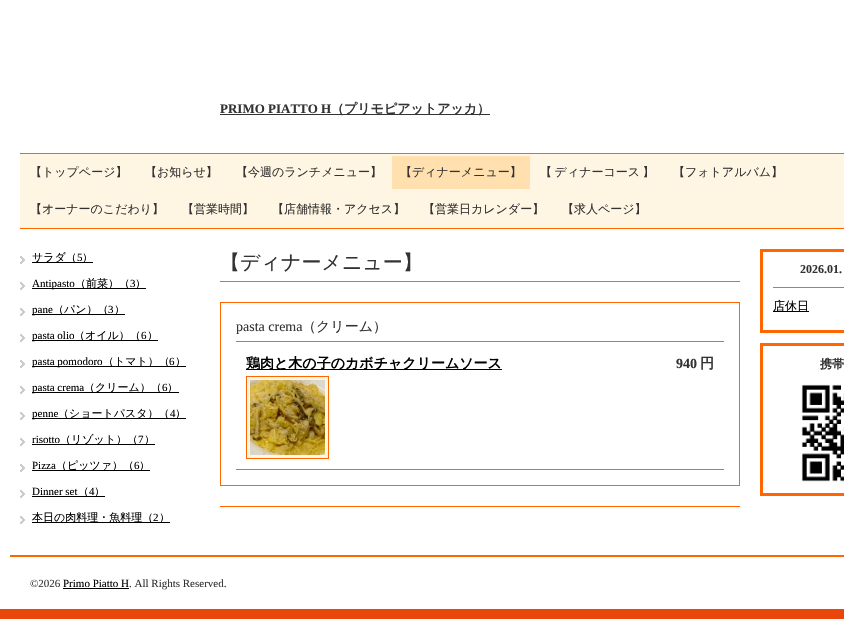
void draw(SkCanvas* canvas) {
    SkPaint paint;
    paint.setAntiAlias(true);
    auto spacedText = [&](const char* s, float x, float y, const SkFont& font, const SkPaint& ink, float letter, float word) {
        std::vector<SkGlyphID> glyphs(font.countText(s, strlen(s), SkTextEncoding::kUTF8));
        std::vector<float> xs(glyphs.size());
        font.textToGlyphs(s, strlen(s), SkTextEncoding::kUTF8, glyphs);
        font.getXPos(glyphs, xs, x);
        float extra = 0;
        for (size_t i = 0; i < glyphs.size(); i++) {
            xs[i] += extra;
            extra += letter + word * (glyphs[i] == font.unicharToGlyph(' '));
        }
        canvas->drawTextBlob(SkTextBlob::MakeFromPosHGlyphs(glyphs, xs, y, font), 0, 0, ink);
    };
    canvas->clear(0xFFE94709);
    paint.setColor(0xFFFFFFFF);
    canvas->drawRect(SkRect::MakeXYWH(0, 0, 844, 609), paint);
    SkFont font1(fontMgr->matchFamilyStyle("Liberation Serif", SkFontStyle::Bold()), 13);
    font1.setSubpixel(true);
    paint.setColor(0xFF333333);
    canvas->drawString("PRIMO PIATTO H", 220, 113, font1, paint);
    canvas->drawRect(SkRect::MakeXYWH(220, 114, 270, 1), paint);
    SkFont font2(fontMgr->matchFamilyStyle("WenQuanYi Zen Hei", SkFontStyle::Bold()), 13);
    font2.setSubpixel(true);
    canvas->drawString("（プリモピアットアッカ）", 331, 113, font2, paint);
    paint.setColor(0xFFFFF5E3);
    canvas->drawRect(SkRect::MakeXYWH(20, 154, 824, 74), paint);
    paint.setColor(0xFFFF6600);
    canvas->drawRect(SkRect::MakeXYWH(20, 153, 824, 1), paint);
    canvas->drawRect(SkRect::MakeXYWH(20, 228, 824, 1), paint);
    SkFont font3(fontMgr->matchFamilyStyle("WenQuanYi Zen Hei", SkFontStyle(500, SkFontStyle::kNormal_Width, SkFontStyle::kUpright_Slant)), 12);
    font3.setSubpixel(true);
    paint.setColor(0xFF333333);
    canvas->drawString("【トップページ】", 30, 176, font3, paint);
    canvas->drawString("【お知らせ】", 145, 176, font3, paint);
    canvas->drawString("【今週のランチメニュー】", 236, 176, font3, paint);
    paint.setColor(0xFFFFE0AE);
    canvas->drawRect(SkRect::MakeXYWH(392, 156, 138, 33), paint);
    paint.setColor(0xFF333333);
    canvas->drawString("【ディナーメニュー】", 400, 176, font3, paint);
    spacedText("【 ディナーコース 】", 540, 176, font3, paint, 0, -1);
    canvas->drawString("【フォトアルバム】", 673, 176, font3, paint);
    canvas->drawString("【オーナーのこだわり】", 30, 213, font3, paint);
    canvas->drawString("【営業時間】", 182, 213, font3, paint);
    canvas->drawString("【店舗情報・アクセス】", 272, 213, font3, paint);
    canvas->drawString("【営業日カレンダー】", 423, 213, font3, paint);
    canvas->drawString("【求人ページ】", 562, 213, font3, paint);
    canvas->drawImageRect(SkImages::DeferredFromEncodedData(SkData::MakeFromFileName("img1.png")), SkRect::MakeXYWH(20, 256, 5, 8), SkSamplingOptions());
    paint.setColor(0xFF000000);
    canvas->drawRect(SkRect::MakeXYWH(32, 262, 61, 1), paint);
    SkFont font4(fontMgr->matchFamilyStyle("WenQuanYi Zen Hei", SkFontStyle(500, SkFontStyle::kNormal_Width, SkFontStyle::kUpright_Slant)), 11);
    font4.setSubpixel(true);
    canvas->drawString("サラダ（", 32, 261, font4, paint);
    SkFont font5(fontMgr->matchFamilyStyle("Liberation Serif", SkFontStyle::Normal()), 11);
    font5.setSubpixel(true);
    canvas->drawString("5", 77, 261, font5, paint);
    canvas->drawString("）", 82, 261, font4, paint);
    canvas->drawImageRect(SkImages::DeferredFromEncodedData(SkData::MakeFromFileName("img1.png")), SkRect::MakeXYWH(20, 282, 5, 8), SkSamplingOptions());
    canvas->drawRect(SkRect::MakeXYWH(32, 288, 114, 1), paint);
    canvas->drawString("Antipasto", 32, 287, font5, paint);
    canvas->drawString("（前菜）（", 75, 287, font4, paint);
    canvas->drawString("3", 130, 287, font5, paint);
    canvas->drawString("）", 135, 287, font4, paint);
    canvas->drawImageRect(SkImages::DeferredFromEncodedData(SkData::MakeFromFileName("img1.png")), SkRect::MakeXYWH(20, 308, 5, 8), SkSamplingOptions());
    canvas->drawRect(SkRect::MakeXYWH(32, 314, 93, 1), paint);
    canvas->drawString("pane", 32, 313, font5, paint);
    canvas->drawString("（パン）（", 53, 313, font4, paint);
    canvas->drawString("3", 108, 313, font5, paint);
    canvas->drawString("）", 114, 313, font4, paint);
    canvas->drawImageRect(SkImages::DeferredFromEncodedData(SkData::MakeFromFileName("img1.png")), SkRect::MakeXYWH(20, 334, 5, 8), SkSamplingOptions());
    canvas->drawRect(SkRect::MakeXYWH(32, 340, 126, 1), paint);
    canvas->drawString("pasta olio", 32, 339, font5, paint);
    canvas->drawString("（オイル）（", 74, 339, font4, paint);
    canvas->drawString("6", 141, 339, font5, paint);
    canvas->drawString("）", 147, 339, font4, paint);
    canvas->drawImageRect(SkImages::DeferredFromEncodedData(SkData::MakeFromFileName("img1.png")), SkRect::MakeXYWH(20, 360, 5, 8), SkSamplingOptions());
    canvas->drawRect(SkRect::MakeXYWH(32, 366, 154, 1), paint);
    canvas->drawString("pasta pomodoro", 32, 365, font5, paint);
    canvas->drawString("（トマト）（", 103, 365, font4, paint);
    canvas->drawString("6", 169, 365, font5, paint);
    canvas->drawString("）", 175, 365, font4, paint);
    canvas->drawImageRect(SkImages::DeferredFromEncodedData(SkData::MakeFromFileName("img1.png")), SkRect::MakeXYWH(20, 386, 5, 8), SkSamplingOptions());
    canvas->drawRect(SkRect::MakeXYWH(32, 392, 147, 1), paint);
    canvas->drawString("pasta crema", 32, 391, font5, paint);
    canvas->drawString("（クリーム）（", 84, 391, font4, paint);
    canvas->drawString("6", 162, 391, font5, paint);
    canvas->drawString("）", 167, 391, font4, paint);
    canvas->drawImageRect(SkImages::DeferredFromEncodedData(SkData::MakeFromFileName("img1.png")), SkRect::MakeXYWH(20, 412, 5, 8), SkSamplingOptions());
    canvas->drawRect(SkRect::MakeXYWH(32, 418, 154, 1), paint);
    canvas->drawString("penne", 32, 417, font5, paint);
    canvas->drawString("（ショートパスタ）（", 58, 417, font4, paint);
    canvas->drawString("4", 170, 417, font5, paint);
    canvas->drawString("）", 175, 417, font4, paint);
    canvas->drawImageRect(SkImages::DeferredFromEncodedData(SkData::MakeFromFileName("img1.png")), SkRect::MakeXYWH(20, 438, 5, 8), SkSamplingOptions());
    canvas->drawString("risotto", 32, 443, font5, paint);
    canvas->drawRect(SkRect::MakeXYWH(32, 444, 123, 1), paint);
    canvas->drawString("（リゾット）（", 60, 443, font4, paint);
    canvas->drawString("7", 138, 443, font5, paint);
    canvas->drawString("）", 144, 443, font4, paint);
    canvas->drawImageRect(SkImages::DeferredFromEncodedData(SkData::MakeFromFileName("img1.png")), SkRect::MakeXYWH(20, 464, 5, 8), SkSamplingOptions());
    canvas->drawString("Pizza", 32, 469, font5, paint);
    canvas->drawRect(SkRect::MakeXYWH(32, 470, 118, 1), paint);
    canvas->drawString("（ピッツァ）（", 56, 469, font4, paint);
    canvas->drawString("6", 134, 469, font5, paint);
    canvas->drawString("）", 139, 469, font4, paint);
    canvas->drawImageRect(SkImages::DeferredFromEncodedData(SkData::MakeFromFileName("img1.png")), SkRect::MakeXYWH(20, 490, 5, 8), SkSamplingOptions());
    canvas->drawString("Dinner set", 32, 495, font5, paint);
    canvas->drawRect(SkRect::MakeXYWH(32, 496, 73, 1), paint);
    canvas->drawString("（", 78, 495, font4, paint);
    canvas->drawString("4", 89, 495, font5, paint);
    canvas->drawString("）", 94, 495, font4, paint);
    canvas->drawImageRect(SkImages::DeferredFromEncodedData(SkData::MakeFromFileName("img1.png")), SkRect::MakeXYWH(20, 516, 5, 8), SkSamplingOptions());
    canvas->drawRect(SkRect::MakeXYWH(32, 522, 138, 1), paint);
    canvas->drawString("本日の肉料理・魚料理（", 32, 521, font4, paint);
    canvas->drawString("2", 153, 521, font5, paint);
    canvas->drawString("）", 159, 521, font4, paint);
    paint.setColor(0xFFFF6600);
    canvas->drawRect(SkRect::MakeXYWH(220, 281, 520, 1), paint);
    SkFont font6(fontMgr->matchFamilyStyle("WenQuanYi Zen Hei", SkFontStyle(500, SkFontStyle::kNormal_Width, SkFontStyle::kUpright_Slant)), 20);
    font6.setSubpixel(true);
    paint.setColor(0xFF333333);
    canvas->drawString("【ディナーメニュー】", 220, 269, font6, paint);
    paint.setColor(0xFFFF6600);
    canvas->drawRect(SkRect::MakeXYWH(220, 506, 520, 1), paint);
    paint.setStyle(SkPaint::kStroke_Style);
    paint.setStrokeWidth(1);
    canvas->drawRect(SkRect::MakeXYWH(220.5f, 302.5f, 519, 183), paint);
    paint.setStyle(SkPaint::kFill_Style);
    canvas->drawRect(SkRect::MakeXYWH(236, 341, 488, 1), paint);
    SkFont font7(fontMgr->matchFamilyStyle("Liberation Serif", SkFontStyle::Normal()), 14);
    font7.setSubpixel(true);
    paint.setColor(0xFF333333);
    canvas->drawString("pasta crema", 236, 331, font7, paint);
    SkFont font8(fontMgr->matchFamilyStyle("WenQuanYi Zen Hei", SkFontStyle(500, SkFontStyle::kNormal_Width, SkFontStyle::kUpright_Slant)), 14);
    font8.setSubpixel(true);
    canvas->drawString("（クリーム）", 302, 331, font8, paint);
    paint.setColor(0xFFFF6600);
    canvas->drawRect(SkRect::MakeXYWH(236, 469, 488, 1), paint);
    paint.setColor(0xFF000000);
    canvas->drawRect(SkRect::MakeXYWH(246, 369, 256, 1), paint);
    SkFont font9(fontMgr->matchFamilyStyle("WenQuanYi Zen Hei", SkFontStyle::Bold()), 14);
    font9.setSubpixel(true);
    canvas->drawString("鶏肉と木の子のカボチャクリームソース", 246, 368, font9, paint);
    SkFont font10(fontMgr->matchFamilyStyle("Liberation Serif", SkFontStyle::Bold()), 14);
    font10.setSubpixel(true);
    paint.setColor(0xFF333333);
    canvas->drawString("940", 676, 368, font10, paint);
    canvas->drawString("円", 700, 368, font9, paint);
    paint.setColor(0xFFFFF5E3);
    canvas->drawRect(SkRect::MakeXYWH(246.5f, 376.5f, 82, 82), paint);
    paint.setStyle(SkPaint::kStroke_Style);
    paint.setColor(0xFFFF6600);
    canvas->drawRect(SkRect::MakeXYWH(246.5f, 376.5f, 82, 82), paint);
    canvas->drawImageRect(SkImages::DeferredFromEncodedData(SkData::MakeFromFileName("img2.png")), SkRect::MakeXYWH(250, 380, 75, 75), SkSamplingOptions());
    paint.setStrokeWidth(3);
    canvas->drawRect(SkRect::MakeXYWH(761.5f, 250.5f, 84, 81), paint);
    SkFont font11(fontMgr->matchFamilyStyle("Liberation Serif", SkFontStyle::Bold()), 12);
    font11.setSubpixel(true);
    paint.setStyle(SkPaint::kFill_Style);
    paint.setColor(0xFF333333);
    canvas->drawString("2026.01.", 800, 273, font11, paint);
    paint.setColor(0xFFFF6600);
    canvas->drawRect(SkRect::MakeXYWH(773, 287, 71, 1), paint);
    paint.setColor(0xFF000000);
    canvas->drawRect(SkRect::MakeXYWH(773, 311, 36, 1), paint);
    canvas->drawString("店休日", 773, 310, font3, paint);
    paint.setStyle(SkPaint::kStroke_Style);
    paint.setColor(0xFFFF6600);
    canvas->drawRect(SkRect::MakeXYWH(761.5f, 344.5f, 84, 150), paint);
    SkFont font12(fontMgr->matchFamilyStyle("WenQuanYi Zen Hei", SkFontStyle::Bold()), 12);
    font12.setSubpixel(true);
    paint.setStyle(SkPaint::kFill_Style);
    paint.setColor(0xFF333333);
    canvas->drawString("携帯", 820, 368, font12, paint);
    canvas->drawImageRect(SkImages::DeferredFromEncodedData(SkData::MakeFromFileName("img3.png")), SkRect::MakeXYWH(801, 384, 43, 98), SkSamplingOptions());
    paint.setColor(0xFFFF6600);
    canvas->drawRect(SkRect::MakeXYWH(10, 555, 834, 2), paint);
    paint.setColor(0xFF333333);
    canvas->drawString("©2026", 30, 587, font5, paint);
    paint.setColor(0xFF000000);
    canvas->drawString("Primo Piatto H", 63, 587, font5, paint);
    canvas->drawRect(SkRect::MakeXYWH(63, 588, 66, 1), paint);
    paint.setColor(0xFF333333);
    canvas->drawString(". All Rights Reserved.", 129, 587, font5, paint);
}
